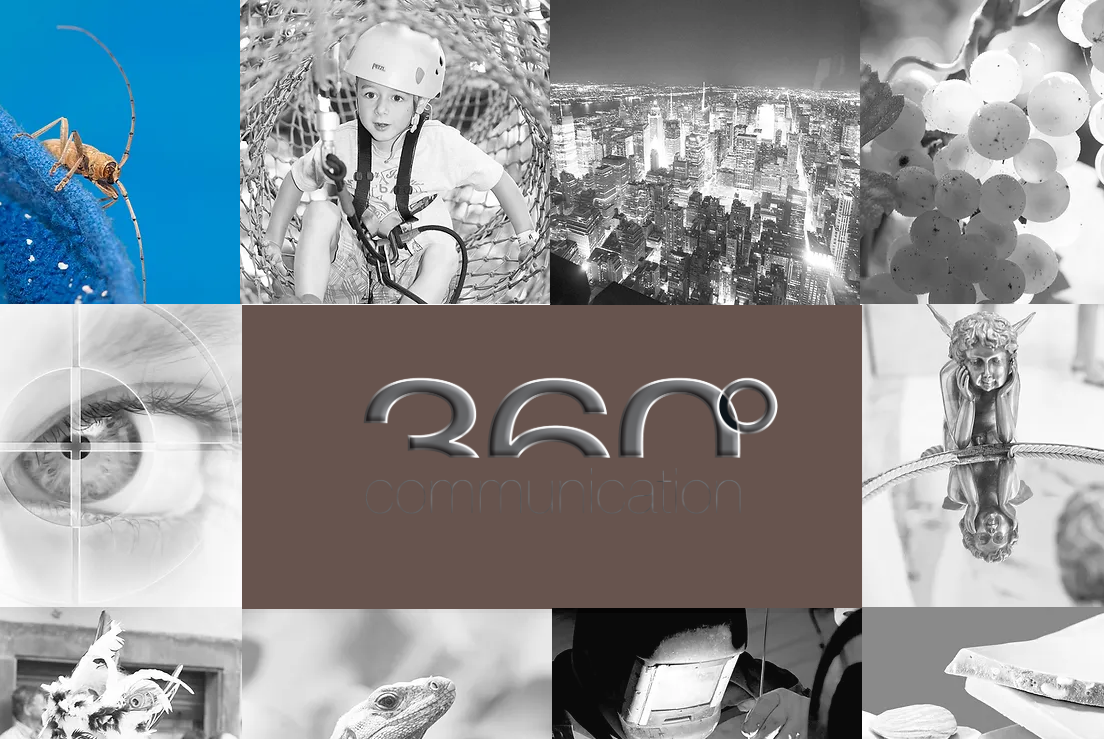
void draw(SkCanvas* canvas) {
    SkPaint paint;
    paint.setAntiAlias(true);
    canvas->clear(0xFFFFFFFF);
    canvas->drawImageRect(SkImages::DeferredFromEncodedData(SkData::MakeFromFileName("img1.png")), SkRect::MakeXYWH(0, 0, 240, 304), SkSamplingOptions());
    canvas->drawImageRect(SkImages::DeferredFromEncodedData(SkData::MakeFromFileName("img2.png")), SkRect::MakeXYWH(240, 0, 310, 304), SkSamplingOptions());
    canvas->drawImageRect(SkImages::DeferredFromEncodedData(SkData::MakeFromFileName("img3.png")), SkRect::MakeXYWH(550, 0, 310, 305), SkSamplingOptions());
    canvas->drawImageRect(SkImages::DeferredFromEncodedData(SkData::MakeFromFileName("img4.png")), SkRect::MakeXYWH(860, 0, 244, 304), SkSamplingOptions());
    canvas->drawImageRect(SkImages::DeferredFromEncodedData(SkData::MakeFromFileName("img5.png")), SkRect::MakeXYWH(0, 304, 242, 304), SkSamplingOptions());
    paint.setColor(0xFF67544E);
    canvas->drawRect(SkRect::MakeXYWH(242, 305, 621, 308), paint);
    canvas->drawImageRect(SkImages::DeferredFromEncodedData(SkData::MakeFromFileName("img6.png")), SkRect::MakeXYWH(363, 377, 415, 137), SkSamplingOptions());
    canvas->drawImageRect(SkImages::DeferredFromEncodedData(SkData::MakeFromFileName("img7.png")), SkRect::MakeXYWH(862, 304, 242, 304), SkSamplingOptions());
    canvas->drawImageRect(SkImages::DeferredFromEncodedData(SkData::MakeFromFileName("img8.png")), SkRect::MakeXYWH(0, 607, 242, 132), SkSamplingOptions());
    canvas->drawImageRect(SkImages::DeferredFromEncodedData(SkData::MakeFromFileName("img9.png")), SkRect::MakeXYWH(242, 609, 310, 130), SkSamplingOptions());
    canvas->drawImageRect(SkImages::DeferredFromEncodedData(SkData::MakeFromFileName("img10.png")), SkRect::MakeXYWH(552, 608, 310, 131), SkSamplingOptions());
    canvas->drawImageRect(SkImages::DeferredFromEncodedData(SkData::MakeFromFileName("img11.png")), SkRect::MakeXYWH(862, 607, 242, 132), SkSamplingOptions());
}
